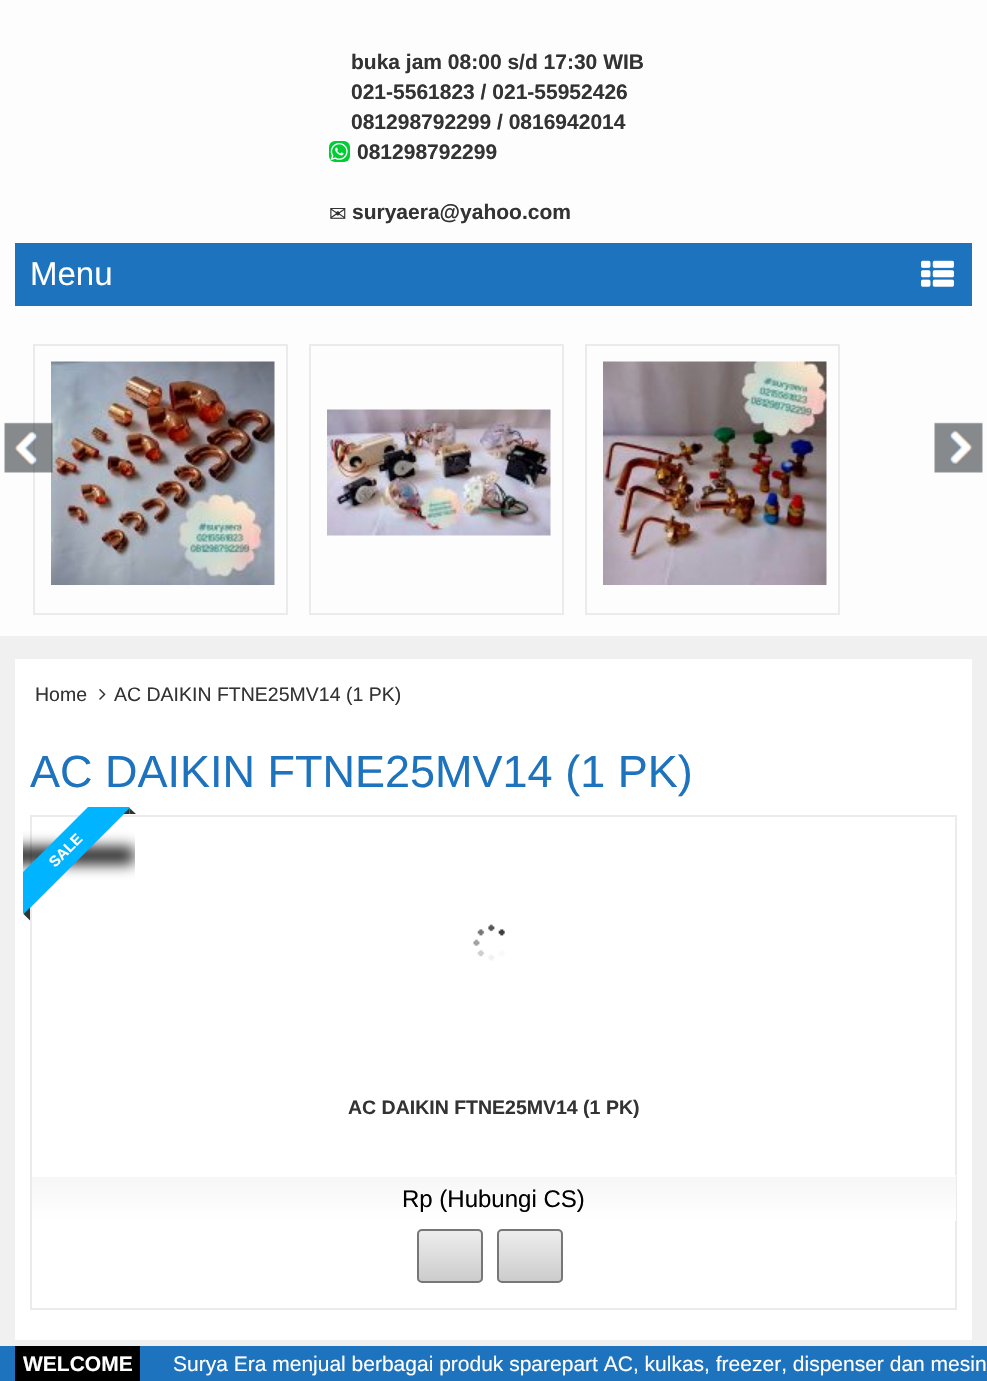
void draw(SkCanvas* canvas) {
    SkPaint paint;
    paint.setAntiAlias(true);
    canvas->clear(0xFFFDFDFD);
    SkFont font1(fontMgr->matchFamilyStyle("Liberation Sans", SkFontStyle::Bold()), 21);
    font1.setSubpixel(true);
    paint.setColor(0xFF333333);
    canvas->drawString("buka jam 08:00 s/d 17:30 WIB", 351, 69, font1, paint);
    canvas->drawString("021-5561823 / 021-55952426", 351, 99, font1, paint);
    canvas->drawString("081298792299 / 0816942014", 351, 129, font1, paint);
    paint.setColor(0xFF00CC33);
    canvas->drawRoundRect(SkRect::MakeXYWH(329, 141, 21, 21), 6, 6, paint);
    canvas->drawImageRect(SkImages::DeferredFromEncodedData(SkData::MakeFromFileName("img1.png")), SkRect::MakeXYWH(330, 143, 18, 18), SkSamplingOptions());
    paint.setColor(0xFF333333);
    canvas->drawString("081298792299", 357, 159, font1, paint);
    SkFont font2(fontMgr->matchFamilyStyle("DejaVu Sans", SkFontStyle::Normal()), 21);
    font2.setSubpixel(true);
    canvas->drawString("✉", 329, 221, font2, paint);
    canvas->drawString("suryaera@yahoo.com", 352, 219, font1, paint);
    paint.setColor(0xFF1E73BE);
    canvas->drawRect(SkRect::MakeXYWH(15, 243, 957, 63), paint);
    SkFont font3(fontMgr->matchFamilyStyle("Liberation Sans", SkFontStyle::Normal()), 33);
    font3.setSubpixel(true);
    paint.setColor(0xFFFFFFFF);
    canvas->drawString("Menu", 30, 285, font3, paint);
    canvas->drawImageRect(SkImages::DeferredFromEncodedData(SkData::MakeFromFileName("img2.png")), SkRect::MakeXYWH(921, 260, 33, 27), SkSamplingOptions());
    paint.setStyle(SkPaint::kStroke_Style);
    paint.setStrokeWidth(2);
    paint.setColor(0xFFEBEBEB);
    canvas->drawRect(SkRect::MakeXYWH(34, 345, 253, 269), paint);
    canvas->drawImageRect(SkImages::DeferredFromEncodedData(SkData::MakeFromFileName("img4.png")), SkRect::MakeXYWH(51, 361, 224, 224), SkSamplingOptions());
    canvas->drawImageRect(SkImages::DeferredFromEncodedData(SkData::MakeFromFileName("img3.png")), SkRect::MakeXYWH(4, 422, 49, 51), SkSamplingOptions());
    canvas->drawRect(SkRect::MakeXYWH(310, 345, 253, 269), paint);
    canvas->drawImageRect(SkImages::DeferredFromEncodedData(SkData::MakeFromFileName("img5.png")), SkRect::MakeXYWH(327, 409, 224, 127), SkSamplingOptions());
    canvas->drawRect(SkRect::MakeXYWH(586, 345, 253, 269), paint);
    canvas->drawImageRect(SkImages::DeferredFromEncodedData(SkData::MakeFromFileName("img6.png")), SkRect::MakeXYWH(603, 361, 224, 224), SkSamplingOptions());
    canvas->drawImageRect(SkImages::DeferredFromEncodedData(SkData::MakeFromFileName("img7.png")), SkRect::MakeXYWH(934, 422, 49, 51), SkSamplingOptions());
    paint.setStyle(SkPaint::kFill_Style);
    paint.setColor(0xFFF0F0F0);
    canvas->drawRect(SkRect::MakeXYWH(0, 636, 987, 710), paint);
    paint.setColor(0xFFFFFFFF);
    canvas->drawRect(SkRect::MakeXYWH(15, 659, 957, 681), paint);
    SkFont font4(fontMgr->matchFamilyStyle("Liberation Sans", SkFontStyle::Normal()), 19.5f);
    font4.setSubpixel(true);
    paint.setColor(0xFF333333);
    canvas->drawString("Home", 35, 701, font4, paint);
    canvas->drawImageRect(SkImages::DeferredFromEncodedData(SkData::MakeFromFileName("img8.png")), SkRect::MakeXYWH(99, 689, 7, 11), SkSamplingOptions());
    canvas->drawString("AC DAIKIN FTNE25MV14 (1 PK)", 114, 701, font4, paint);
    SkFont font5(fontMgr->matchFamilyStyle("Liberation Sans", SkFontStyle::Normal()), 45);
    font5.setSubpixel(true);
    paint.setColor(0xFF1E73BE);
    canvas->drawString("AC DAIKIN FTNE25MV14 (1 PK)", 30, 787, font5, paint);
    paint.setStyle(SkPaint::kStroke_Style);
    paint.setColor(0xFFEBEBEB);
    canvas->drawRect(SkRect::MakeXYWH(31, 816, 925, 493), paint);
    canvas->save();
    canvas->clipRect(SkRect::MakeXYWH(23, 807, 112, 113));
    paint.setStyle(SkPaint::kFill_Style);
    paint.setColor(0xFF000000);
    paint.setMaskFilter(SkMaskFilter::MakeBlur(kNormal_SkBlurStyle, 7.5f));
    canvas->drawRect(SkRect::MakeXYWH(-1, 848, 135, 15), paint);
    paint.setMaskFilter(nullptr);
    canvas->restore();
    canvas->save();
    canvas->clipRect(SkRect::MakeXYWH(23, 807, 112, 113));
    paint.setColor(0xFF00B4FF);
    canvas->drawPath(SkPathBuilder().moveTo(2, 893).lineTo(108, 787).lineTo(130, 808).lineTo(24, 914).close().detach(), paint);
    canvas->restore();
    paint.setColor(0xFF333333);
    canvas->drawPath(SkPathBuilder().moveTo(123.5f, 814).lineTo(129.5f, 808).lineTo(129.5f, 814).close().detach(), paint);
    canvas->drawPath(SkPathBuilder().moveTo(129.5f, 808).lineTo(136, 814).lineTo(129.5f, 814).close().detach(), paint);
    SkFont font6(fontMgr->matchFamilyStyle("Liberation Sans", SkFontStyle::Bold()), 15);
    font6.setSubpixel(true);
    paint.setColor(0xFFFFFFFF);
    canvas->save();
    canvas->rotate(-45, 55, 868);
    canvas->drawString("SALE", 55, 868, font6, paint);
    canvas->restore();
    paint.setColor(0xFF333333);
    canvas->drawPath(SkPathBuilder().moveTo(23.5f, 914).lineTo(30, 907.5f).lineTo(30, 914).close().moveTo(30, 920.5f).lineTo(23.5f, 914).lineTo(30, 914).close().detach(), paint);
    canvas->drawImageRect(SkImages::DeferredFromEncodedData(SkData::MakeFromFileName("img9.png")), SkRect::MakeXYWH(473, 924, 32, 37), SkSamplingOptions());
    SkFont font7(fontMgr->matchFamilyStyle("Liberation Sans", SkFontStyle::Bold()), 19.5f);
    font7.setSubpixel(true);
    canvas->drawString("AC DAIKIN FTNE25MV14 (1 PK)", 348, 1114, font7, paint);
    {
        const SkColor colors[] = {0xFFF6F6F6, 0xFFFFFFFF};
        const float stops[] = {0, 1};
        const SkPoint ends[] = {{494, 1176}, {494, 1221}};
        paint.setShader(SkGradientShader::MakeLinear(ends, colors, stops, 2, SkTileMode::kClamp));
        paint.setAlpha(255);
    }
    canvas->drawRect(SkRect::MakeXYWH(32, 1177, 924, 44), paint);
    paint.setShader(nullptr);
    paint.setColor(0xFFFFFFFF);
    canvas->drawRect(SkRect::MakeXYWH(955, 1175, 1, 2), paint);
    SkFont font8(fontMgr->matchFamilyStyle("Liberation Sans", SkFontStyle::Normal()), 24);
    font8.setSubpixel(true);
    paint.setColor(0xFF000000);
    canvas->drawString("Rp (Hubungi CS)", 402, 1207, font8, paint);
    canvas->save();
    canvas->clipPath(SkPathBuilder().moveTo(422, 1229).lineTo(478, 1229).cubicTo(481, 1229, 483, 1231, 483, 1234).lineTo(483, 1278).cubicTo(483, 1281, 481, 1283, 478, 1283).lineTo(422, 1283).cubicTo(419, 1283, 417, 1281, 417, 1278).lineTo(417, 1234).cubicTo(417, 1231, 419, 1229, 422, 1229).close().detach(), true);
    {
        const SkColor colors[] = {0xFFEEEEEE, 0xFFCCCCCC};
        const float stops[] = {0, 1};
        const SkPoint ends[] = {{450, 1230}, {450, 1281}};
        paint.setShader(SkGradientShader::MakeLinear(ends, colors, stops, 2, SkTileMode::kClamp));
        paint.setAlpha(255);
    }
    canvas->drawRect(SkRect::MakeXYWH(417, 1230, 66, 51), paint);
    canvas->restore();
    paint.setStyle(SkPaint::kStroke_Style);
    paint.setShader(nullptr);
    paint.setColor(0xFF777777);
    canvas->drawRoundRect(SkRect::MakeXYWH(418, 1230, 64, 52), 4, 4, paint);
    canvas->save();
    canvas->clipPath(SkPathBuilder().moveTo(502, 1229).lineTo(558, 1229).cubicTo(561, 1229, 563, 1231, 563, 1234).lineTo(563, 1278).cubicTo(563, 1281, 561, 1283, 558, 1283).lineTo(502, 1283).cubicTo(499, 1283, 497, 1281, 497, 1278).lineTo(497, 1234).cubicTo(497, 1231, 499, 1229, 502, 1229).close().detach(), true);
    paint.setStyle(SkPaint::kFill_Style);
    {
        const SkColor colors[] = {0xFFEEEEEE, 0xFFCCCCCC};
        const float stops[] = {0, 1};
        const SkPoint ends[] = {{530, 1230}, {530, 1281}};
        paint.setShader(SkGradientShader::MakeLinear(ends, colors, stops, 2, SkTileMode::kClamp));
        paint.setAlpha(255);
    }
    canvas->drawRect(SkRect::MakeXYWH(497, 1230, 66, 51), paint);
    canvas->restore();
    paint.setStyle(SkPaint::kStroke_Style);
    paint.setShader(nullptr);
    paint.setColor(0xFF777777);
    canvas->drawRoundRect(SkRect::MakeXYWH(498, 1230, 64, 52), 4, 4, paint);
    paint.setStyle(SkPaint::kFill_Style);
    paint.setColor(0xFF1E73BE);
    canvas->drawRect(SkRect::MakeXYWH(0, 1346, 987, 35), paint);
    paint.setColor(0xFF000000);
    canvas->drawRect(SkRect::MakeXYWH(15, 1346, 125, 35), paint);
    paint.setColor(0xFFFFFFFF);
    canvas->drawString("WELCOME", 23, 1371, font1, paint);
    SkFont font9(fontMgr->matchFamilyStyle("Liberation Sans", SkFontStyle::Normal()), 21);
    font9.setSubpixel(true);
    canvas->drawString("Surya Era menjual berbagai produk sparepart AC, kulkas, freezer, dispenser dan mesin", 173, 1371, font9, paint);
}
